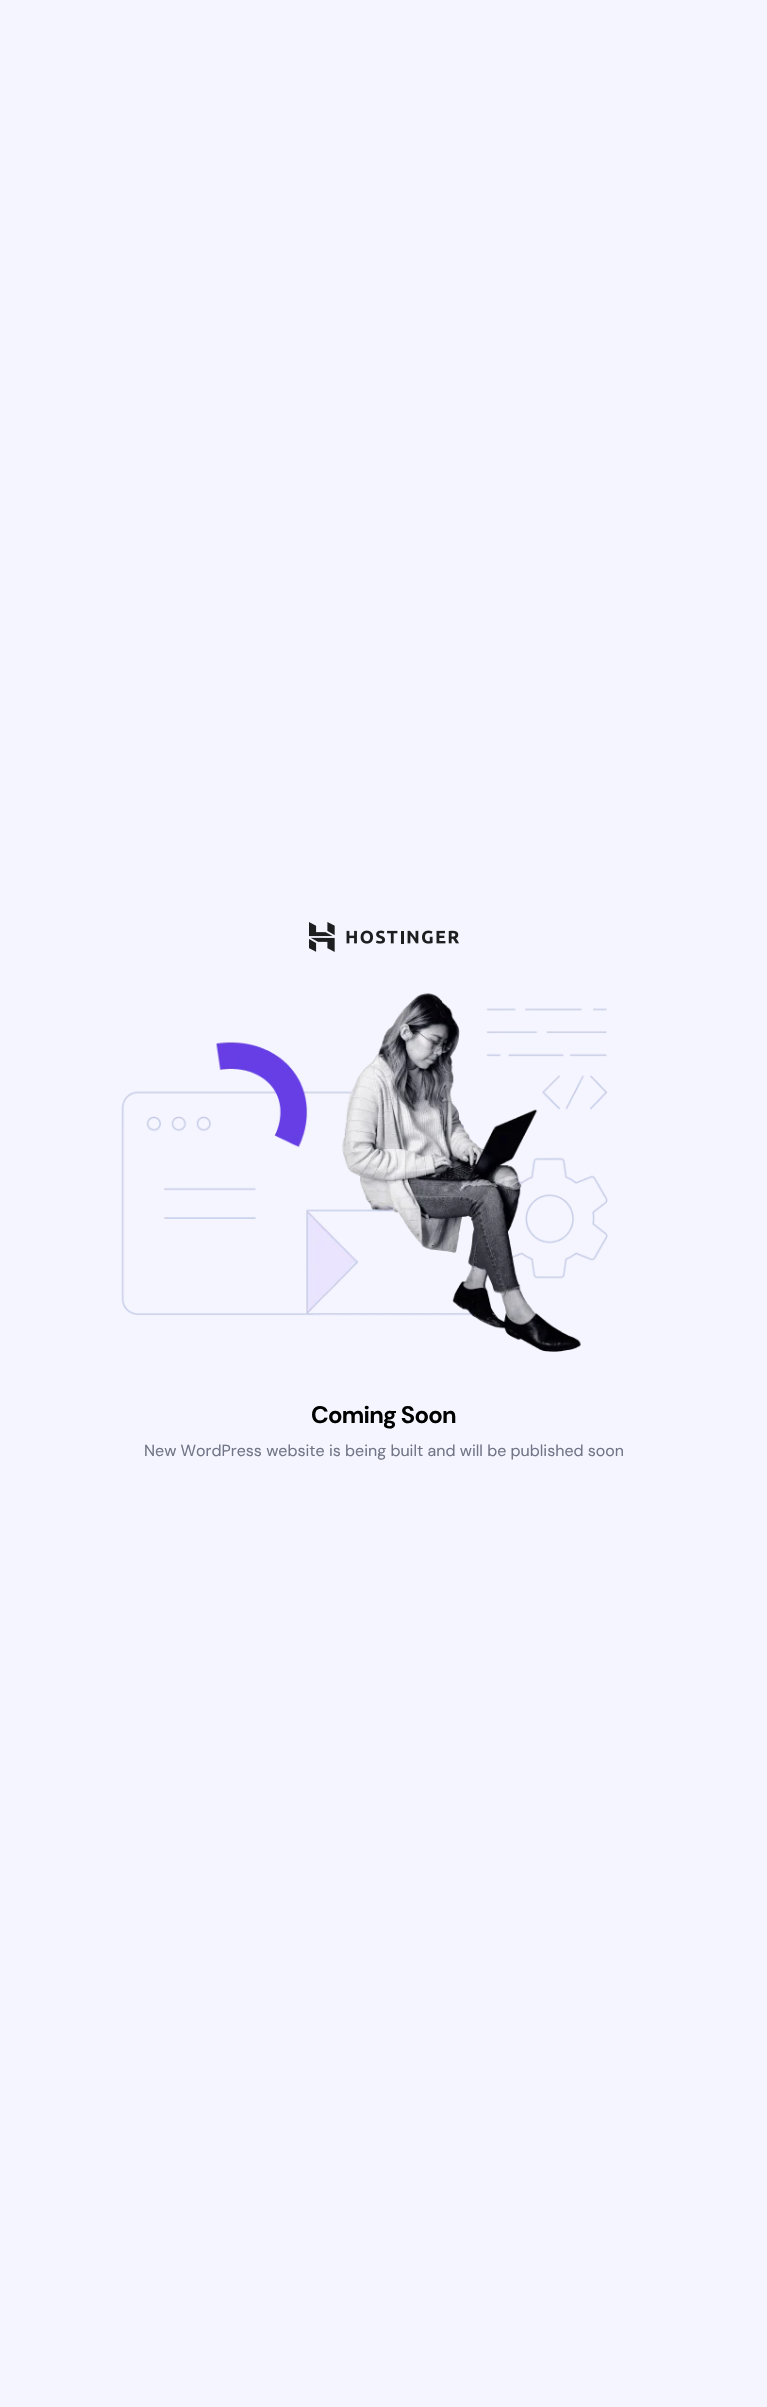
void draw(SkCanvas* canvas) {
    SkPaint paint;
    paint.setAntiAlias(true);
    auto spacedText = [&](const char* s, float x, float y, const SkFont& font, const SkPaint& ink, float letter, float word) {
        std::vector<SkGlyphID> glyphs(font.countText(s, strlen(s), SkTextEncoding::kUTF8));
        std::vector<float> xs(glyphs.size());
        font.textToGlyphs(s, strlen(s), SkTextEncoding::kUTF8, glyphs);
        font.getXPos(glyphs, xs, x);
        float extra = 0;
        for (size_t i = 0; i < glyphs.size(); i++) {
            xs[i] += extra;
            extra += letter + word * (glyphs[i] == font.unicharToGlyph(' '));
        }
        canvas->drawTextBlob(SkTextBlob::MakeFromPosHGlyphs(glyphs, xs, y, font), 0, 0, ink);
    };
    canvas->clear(0xFFF4F5FF);
    canvas->drawImageRect(SkImages::DeferredFromEncodedData(SkData::MakeFromFileName("img1.png")), SkRect::MakeXYWH(309, 922, 150, 30), SkSamplingOptions());
    canvas->drawImageRect(SkImages::DeferredFromEncodedData(SkData::MakeFromFileName("img2.png")), SkRect::MakeXYWH(121, 993, 487, 359), SkSamplingOptions());
    SkFont font1(fontMgr->matchFamilyStyle("DM Sans", SkFontStyle::Bold()), 24);
    font1.setSubpixel(true);
    paint.setColor(0xFF000000);
    spacedText("Coming Soon", 311, 1423, font1, paint, -0.75f, 0);
    SkFont font2(fontMgr->matchFamilyStyle("DM Sans", SkFontStyle::Normal()), 16);
    font2.setSubpixel(true);
    paint.setColor(0xFF727586);
    canvas->drawString("New WordPress website is being built and will be published soon", 144, 1456, font2, paint);
}
